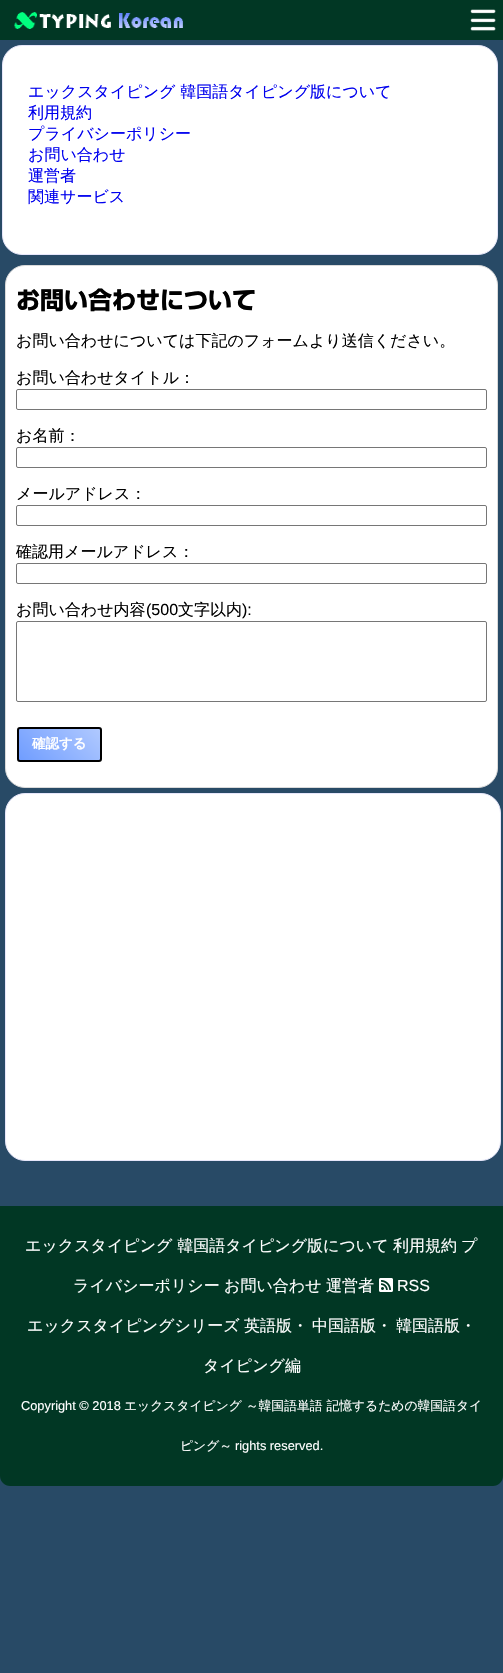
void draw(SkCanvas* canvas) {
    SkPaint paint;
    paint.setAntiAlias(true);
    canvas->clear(0xFF284A66);
    paint.setColor(0xFF013724);
    canvas->drawRect(SkRect::MakeXYWH(0, 0, 503, 40), paint);
    canvas->drawImageRect(SkImages::DeferredFromEncodedData(SkData::MakeFromFileName("img1.png")), SkRect::MakeXYWH(14, 12, 169, 17), SkSamplingOptions());
    canvas->drawImageRect(SkImages::DeferredFromEncodedData(SkData::MakeFromFileName("img2.png")), SkRect::MakeXYWH(470, 9, 26, 22), SkSamplingOptions());
    paint.setColor(0xFFFFFFFF);
    canvas->drawRoundRect(SkRect::MakeXYWH(2.5f, 45.5f, 495, 209), 19.5f, 19.5f, paint);
    paint.setStyle(SkPaint::kStroke_Style);
    paint.setStrokeWidth(1);
    paint.setColor(0xFFE6E6FA);
    canvas->drawRoundRect(SkRect::MakeXYWH(2.5f, 45.5f, 495, 209), 19.5f, 19.5f, paint);
    SkFont font1(fontMgr->matchFamilyStyle("WenQuanYi Zen Hei", SkFontStyle(500, SkFontStyle::kNormal_Width, SkFontStyle::kUpright_Slant)), 16);
    font1.setSubpixel(true);
    paint.setStyle(SkPaint::kFill_Style);
    paint.setColor(0xFF0000EE);
    canvas->drawString("エックスタイピング 韓国語タイピング版について", 28, 97, font1, paint);
    canvas->drawString("利用規約", 28, 118, font1, paint);
    canvas->drawString("プライバシーポリシー", 28, 139, font1, paint);
    canvas->drawString("お問い合わせ", 28, 160, font1, paint);
    canvas->drawString("運営者", 28, 181, font1, paint);
    canvas->drawString("関連サービス", 28, 202, font1, paint);
    paint.setColor(0xFFFFFFFF);
    canvas->drawRoundRect(SkRect::MakeXYWH(5.5f, 265.5f, 492, 522), 19.5f, 19.5f, paint);
    paint.setStyle(SkPaint::kStroke_Style);
    paint.setColor(0xFFDADADA);
    canvas->drawRoundRect(SkRect::MakeXYWH(5.5f, 265.5f, 492, 522), 19.5f, 19.5f, paint);
    SkFont font2(fontMgr->matchFamilyStyle("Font", SkFontStyle::Bold()), 24);
    font2.setSubpixel(true);
    paint.setStyle(SkPaint::kFill_Style);
    paint.setColor(0xFF000000);
    canvas->drawString("お問い合わせについて", 16, 309, font2, paint);
    canvas->drawString("お問い合わせについては下記のフォームより送信ください。", 16, 346, font1, paint);
    canvas->drawString("お問い合わせタイトル：", 16, 383, font1, paint);
    paint.setStyle(SkPaint::kStroke_Style);
    paint.setColor(0xFF767676);
    canvas->drawRoundRect(SkRect::MakeXYWH(16.5f, 389.5f, 470, 20), 1.5f, 1.5f, paint);
    paint.setStyle(SkPaint::kFill_Style);
    paint.setColor(0xFF000000);
    canvas->drawString("お名前：", 16, 441, font1, paint);
    paint.setStyle(SkPaint::kStroke_Style);
    paint.setColor(0xFF767676);
    canvas->drawRoundRect(SkRect::MakeXYWH(16.5f, 447.5f, 470, 20), 1.5f, 1.5f, paint);
    paint.setStyle(SkPaint::kFill_Style);
    paint.setColor(0xFF000000);
    canvas->drawString("メールアドレス：", 16, 499, font1, paint);
    paint.setStyle(SkPaint::kStroke_Style);
    paint.setColor(0xFF767676);
    canvas->drawRoundRect(SkRect::MakeXYWH(16.5f, 505.5f, 470, 20), 1.5f, 1.5f, paint);
    paint.setStyle(SkPaint::kFill_Style);
    paint.setColor(0xFF000000);
    canvas->drawString("確認用メールアドレス：", 16, 557, font1, paint);
    paint.setStyle(SkPaint::kStroke_Style);
    paint.setColor(0xFF767676);
    canvas->drawRoundRect(SkRect::MakeXYWH(16.5f, 563.5f, 470, 20), 1.5f, 1.5f, paint);
    paint.setStyle(SkPaint::kFill_Style);
    paint.setColor(0xFF000000);
    canvas->drawString("お問い合わせ内容", 16, 615, font1, paint);
    SkFont font3(fontMgr->matchFamilyStyle("Liberation Sans", SkFontStyle::Normal()), 16);
    font3.setSubpixel(true);
    canvas->drawString("(500", 146, 615, font3, paint);
    canvas->drawString("文字以内", 178, 615, font1, paint);
    canvas->drawString("):", 242, 615, font3, paint);
    paint.setStyle(SkPaint::kStroke_Style);
    paint.setColor(0xFF767676);
    canvas->drawRoundRect(SkRect::MakeXYWH(16.5f, 621.5f, 470, 80), 1.5f, 1.5f, paint);
    paint.setStyle(SkPaint::kFill_Style);
    {
        const SkColor colors[] = {0xFF709DFF, 0xFFB0C9FF};
        const float stops[] = {0, 1};
        const SkPoint ends[] = {{32, 773}, {88, 717}};
        paint.setShader(SkGradientShader::MakeLinear(ends, colors, stops, 2, SkTileMode::kClamp));
        paint.setAlpha(255);
    }
    canvas->drawRect(SkRect::MakeXYWH(19, 729, 81, 31), paint);
    paint.setStyle(SkPaint::kStroke_Style);
    paint.setStrokeWidth(2);
    paint.setShader(nullptr);
    paint.setColor(0xFF000000);
    canvas->drawRoundRect(SkRect::MakeXYWH(18, 728, 83, 33), 2, 2, paint);
    SkFont font4(fontMgr->matchFamilyStyle("WenQuanYi Zen Hei", SkFontStyle::Bold()), 13.5f);
    font4.setSubpixel(true);
    paint.setStyle(SkPaint::kFill_Style);
    paint.setColor(0xFFFFFFFF);
    canvas->drawString("確認する", 32, 748, font4, paint);
    canvas->drawRoundRect(SkRect::MakeXYWH(5.5f, 793.5f, 495, 367), 19.5f, 19.5f, paint);
    paint.setStyle(SkPaint::kStroke_Style);
    paint.setStrokeWidth(1);
    paint.setColor(0xFFE6E6FA);
    canvas->drawRoundRect(SkRect::MakeXYWH(5.5f, 793.5f, 495, 367), 19.5f, 19.5f, paint);
    paint.setStyle(SkPaint::kFill_Style);
    paint.setColor(0xFF013724);
    canvas->drawPath(SkPathBuilder().moveTo(0, 1206).lineTo(503, 1206).lineTo(503, 1476).cubicTo(503, 1481.5f, 498.5f, 1486, 493, 1486).lineTo(10, 1486).cubicTo(4.5f, 1486, 0, 1481.5f, 0, 1476).close().detach(), paint);
    paint.setColor(0xFFFFFFFF);
    canvas->drawString("エックスタイピング 韓国語タイピング版について", 25, 1251, font1, paint);
    canvas->drawString("利用規約", 393, 1251, font1, paint);
    canvas->drawString("プ", 461, 1251, font1, paint);
    canvas->drawString("ライバシーポリシー", 73, 1291, font1, paint);
    canvas->drawString("お問い合わせ", 224, 1291, font1, paint);
    canvas->drawString("運営者", 326, 1291, font1, paint);
    canvas->drawImageRect(SkImages::DeferredFromEncodedData(SkData::MakeFromFileName("img3.png")), SkRect::MakeXYWH(379, 1278, 14, 14), SkSamplingOptions());
    canvas->drawString("RSS", 397, 1291, font3, paint);
    canvas->drawString("エックスタイピングシリーズ", 27, 1331, font1, paint);
    canvas->drawString("英語版・", 244, 1331, font1, paint);
    canvas->drawString("中国語版・", 312, 1331, font1, paint);
    canvas->drawString("韓国語版・", 396, 1331, font1, paint);
    canvas->drawString("タイピング編", 203, 1371, font1, paint);
    SkFont font5(fontMgr->matchFamilyStyle("Liberation Sans", SkFontStyle::Normal()), 12.8f);
    font5.setSubpixel(true);
    canvas->drawString("Copyright © 2018", 21, 1410, font5, paint);
    SkFont font6(fontMgr->matchFamilyStyle("WenQuanYi Zen Hei", SkFontStyle(500, SkFontStyle::kNormal_Width, SkFontStyle::kUpright_Slant)), 12.8f);
    font6.setSubpixel(true);
    canvas->drawString("エックスタイピング ～韓国語単語 記憶するための韓国語タイ", 124, 1410, font6, paint);
    canvas->drawString("ピング～", 180, 1450, font6, paint);
    canvas->drawString("rights reserved.", 235, 1450, font5, paint);
}
